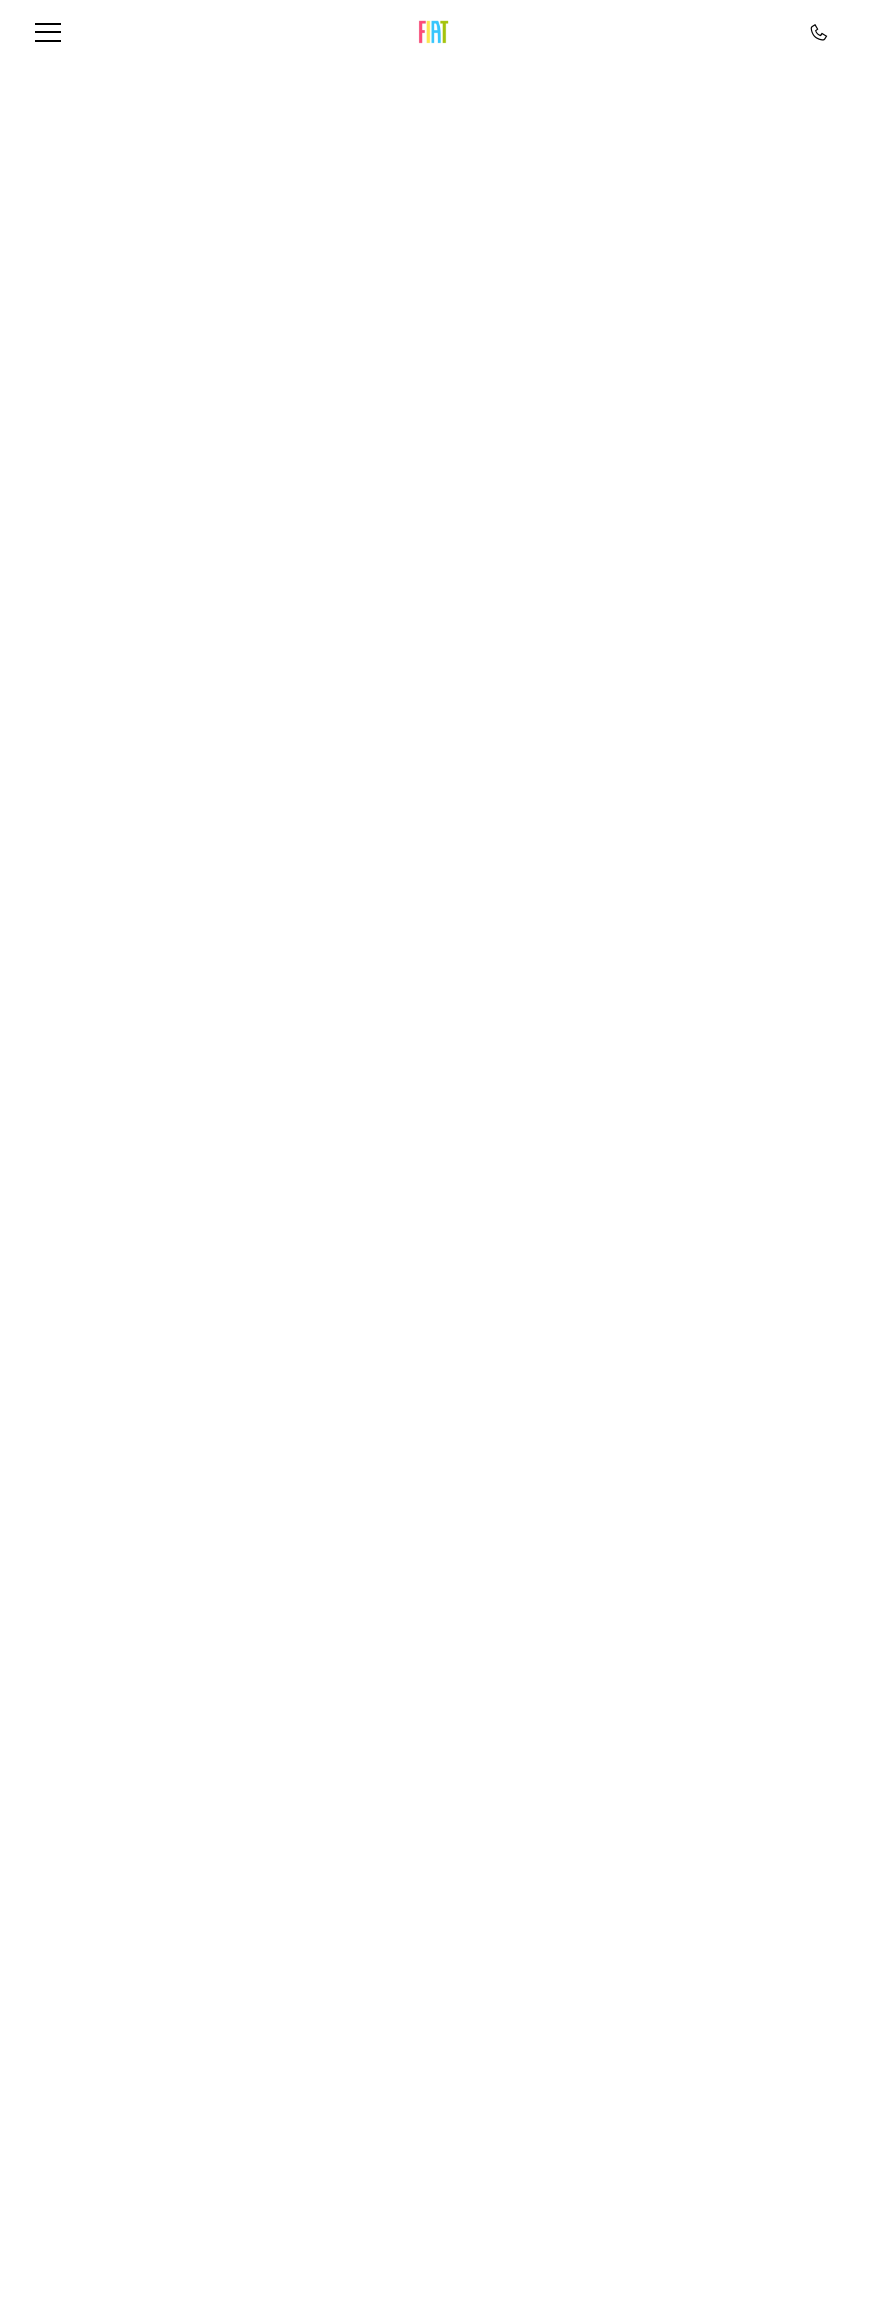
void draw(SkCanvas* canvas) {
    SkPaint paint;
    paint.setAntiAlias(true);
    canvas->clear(0xFFFFFFFF);
    paint.setColor(0xFF000000);
    canvas->drawRect(SkRect::MakeXYWH(35, 23, 26, 2), paint);
    canvas->drawRect(SkRect::MakeXYWH(35, 31, 26, 2), paint);
    canvas->drawRect(SkRect::MakeXYWH(35, 40, 26, 2), paint);
    canvas->drawImageRect(SkImages::DeferredFromEncodedData(SkData::MakeFromFileName("img1.png")), SkRect::MakeXYWH(418, 20, 31, 24), SkSamplingOptions());
    canvas->drawImageRect(SkImages::DeferredFromEncodedData(SkData::MakeFromFileName("img2.png")), SkRect::MakeXYWH(810, 24, 18, 17), SkSamplingOptions());
}
